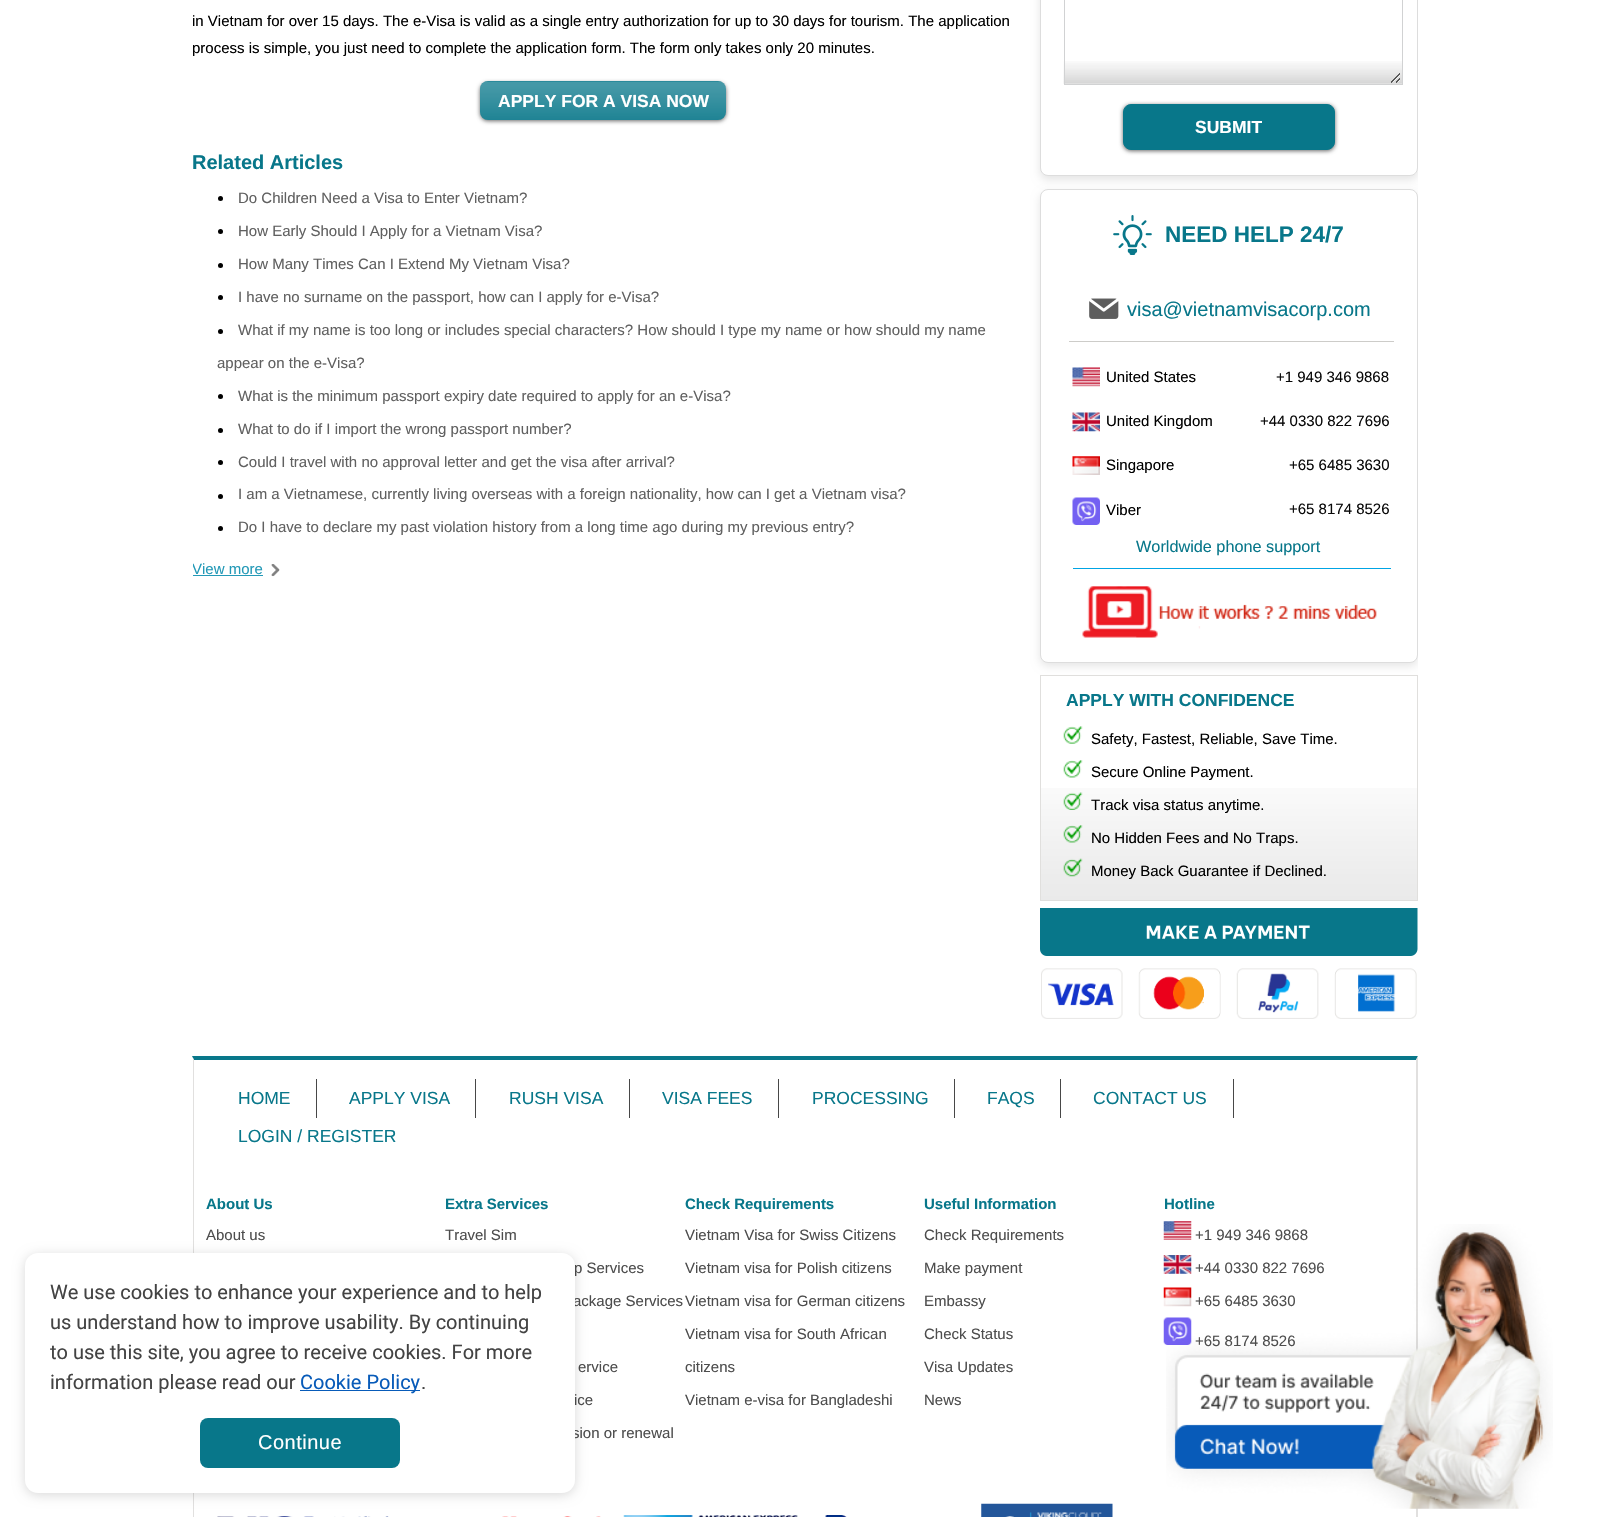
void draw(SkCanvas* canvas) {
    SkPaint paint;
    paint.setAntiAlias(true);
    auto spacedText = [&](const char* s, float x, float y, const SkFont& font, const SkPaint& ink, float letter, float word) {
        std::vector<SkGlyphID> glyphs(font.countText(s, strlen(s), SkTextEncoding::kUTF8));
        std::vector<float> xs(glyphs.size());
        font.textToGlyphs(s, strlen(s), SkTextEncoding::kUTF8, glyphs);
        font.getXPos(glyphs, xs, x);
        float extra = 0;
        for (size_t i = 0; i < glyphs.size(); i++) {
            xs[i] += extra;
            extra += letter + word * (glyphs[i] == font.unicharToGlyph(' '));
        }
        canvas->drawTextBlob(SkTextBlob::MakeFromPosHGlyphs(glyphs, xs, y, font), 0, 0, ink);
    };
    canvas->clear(0xFFFFFFFF);
    canvas->save();
    canvas->clipRect(SkRect::MakeXYWH(193, 0, 1225, 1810));
    SkFont font1(fontMgr->matchFamilyStyle("Liberation Sans", SkFontStyle::Normal()), 15);
    font1.setSubpixel(true);
    paint.setColor(0xFF000000);
    canvas->drawString("in Vietnam for over 15 days. The e-Visa is valid as a single entry authorization for up to 30 days for tourism. The application", 192, 26, font1, paint);
    canvas->drawString("process is simple, you just need to complete the application form. The form only takes only 20 minutes.", 192, 53, font1, paint);
    canvas->restore();
    paint.setColor(0x99000000);
    paint.setMaskFilter(SkMaskFilter::MakeBlur(kNormal_SkBlurStyle, 2));
    canvas->drawRoundRect(SkRect::MakeXYWH(480, 83, 246, 38), 8, 8, paint);
    paint.setMaskFilter(nullptr);
    paint.setColor(0xFF08778A);
    canvas->drawRoundRect(SkRect::MakeXYWH(480, 81, 246, 39), 8, 8, paint);
    canvas->drawImageRect(SkImages::DeferredFromEncodedData(SkData::MakeFromFileName("img1.png")), SkRect::MakeXYWH(480, 81, 246, 39), SkSamplingOptions());
    SkFont font2(fontMgr->matchFamilyStyle("Liberation Sans", SkFontStyle::Bold()), 17.5f);
    font2.setSubpixel(true);
    paint.setColor(0xFFFFFFFF);
    canvas->drawString("APPLY FOR A VISA NOW", 498, 107, font2, paint);
    SkFont font3(fontMgr->matchFamilyStyle("Liberation Sans", SkFontStyle::Bold()), 20);
    font3.setSubpixel(true);
    paint.setColor(0xFF08778A);
    canvas->drawString("Related Articles", 192, 169, font3, paint);
    paint.setColor(0xFF000000);
    canvas->drawCircle(220.5f, 198.5f, 2.5f, paint);
    paint.setColor(0xFF606060);
    canvas->drawString("Do Children Need a Visa to Enter Vietnam?", 238, 203, font1, paint);
    paint.setColor(0xFF000000);
    canvas->drawCircle(220.5f, 231.5f, 2.5f, paint);
    paint.setColor(0xFF606060);
    canvas->drawString("How Early Should I Apply for a Vietnam Visa?", 238, 236, font1, paint);
    paint.setColor(0xFF000000);
    canvas->drawCircle(220.5f, 265.5f, 2.5f, paint);
    paint.setColor(0xFF606060);
    canvas->drawString("How Many Times Can I Extend My Vietnam Visa?", 238, 269, font1, paint);
    paint.setColor(0xFF000000);
    canvas->drawCircle(220.5f, 297.5f, 2.5f, paint);
    paint.setColor(0xFF606060);
    canvas->drawString("I have no surname on the passport, how can I apply for e-Visa?", 238, 302, font1, paint);
    paint.setColor(0xFF000000);
    canvas->drawCircle(220.5f, 331.5f, 2.5f, paint);
    paint.setColor(0xFF606060);
    canvas->drawString("What if my name is too long or includes special characters? How should I type my name or how should my name", 238, 335, font1, paint);
    canvas->drawString("appear on the e-Visa?", 217, 368, font1, paint);
    paint.setColor(0xFF000000);
    canvas->drawCircle(220.5f, 396.5f, 2.5f, paint);
    paint.setColor(0xFF606060);
    canvas->drawString("What is the minimum passport expiry date required to apply for an e-Visa?", 238, 401, font1, paint);
    paint.setColor(0xFF000000);
    canvas->drawCircle(220.5f, 430.5f, 2.5f, paint);
    paint.setColor(0xFF606060);
    canvas->drawString("What to do if I import the wrong passport number?", 238, 434, font1, paint);
    paint.setColor(0xFF000000);
    canvas->drawCircle(220.5f, 462.5f, 2.5f, paint);
    paint.setColor(0xFF606060);
    canvas->drawString("Could I travel with no approval letter and get the visa after arrival?", 238, 467, font1, paint);
    paint.setColor(0xFF000000);
    canvas->drawCircle(220.5f, 496.5f, 2.5f, paint);
    paint.setColor(0xFF606060);
    canvas->drawString("I am a Vietnamese, currently living overseas with a foreign nationality, how can I get a Vietnam visa?", 238, 499, font1, paint);
    paint.setColor(0xFF000000);
    canvas->drawCircle(220.5f, 528.5f, 2.5f, paint);
    paint.setColor(0xFF606060);
    canvas->drawString("Do I have to declare my past violation history from a long time ago during my previous entry?", 238, 532, font1, paint);
    canvas->save();
    canvas->clipRect(SkRect::MakeXYWH(193, 0, 1225, 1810));
    paint.setColor(0xFF2399B7);
    canvas->drawString("View more", 192, 574, font1, paint);
    canvas->restore();
    canvas->drawRect(SkRect::MakeXYWH(193, 575, 70, 1), paint);
    canvas->drawImageRect(SkImages::DeferredFromEncodedData(SkData::MakeFromFileName("img2.png")), SkRect::MakeXYWH(271, 564, 9, 13), SkSamplingOptions());
    canvas->save();
    canvas->clipRect(SkRect::MakeXYWH(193, 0, 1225, 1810));
    paint.setColor(0x1A000000);
    paint.setMaskFilter(SkMaskFilter::MakeBlur(kNormal_SkBlurStyle, 4.5f));
    canvas->drawRoundRect(SkRect::MakeXYWH(1040, -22, 378, 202), 8, 8, paint);
    paint.setMaskFilter(nullptr);
    canvas->restore();
    paint.setColor(0xFFFFFFFF);
    canvas->drawRoundRect(SkRect::MakeXYWH(1040.5f, -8.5f, 377, 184), 7.5f, 7.5f, paint);
    paint.setStyle(SkPaint::kStroke_Style);
    paint.setStrokeWidth(1);
    paint.setColor(0xFFDDDDDD);
    canvas->drawRoundRect(SkRect::MakeXYWH(1040.5f, -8.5f, 377, 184), 7.5f, 7.5f, paint);
    canvas->drawImageRect(SkImages::DeferredFromEncodedData(SkData::MakeFromFileName("img3.png")), SkRect::MakeXYWH(1063, 61, 339, 23), SkSamplingOptions());
    paint.setColor(0xFFD1D2D3);
    canvas->drawRect(SkRect::MakeXYWH(1064.5f, -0.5f, 338, 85), paint);
    paint.setStyle(SkPaint::kFill_Style);
    paint.setColor(0x99000000);
    paint.setMaskFilter(SkMaskFilter::MakeBlur(kNormal_SkBlurStyle, 2));
    canvas->drawRoundRect(SkRect::MakeXYWH(1123, 105, 212, 46), 8, 8, paint);
    paint.setMaskFilter(nullptr);
    paint.setColor(0xFF08778A);
    canvas->drawRoundRect(SkRect::MakeXYWH(1123.5f, 104.5f, 211, 45), 7.5f, 7.5f, paint);
    paint.setStyle(SkPaint::kStroke_Style);
    canvas->drawRoundRect(SkRect::MakeXYWH(1123.5f, 104.5f, 211, 45), 7.5f, 7.5f, paint);
    paint.setStyle(SkPaint::kFill_Style);
    paint.setColor(0xFFFFFFFF);
    canvas->drawString("SUBMIT", 1195, 133, font2, paint);
    canvas->save();
    canvas->clipRect(SkRect::MakeXYWH(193, 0, 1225, 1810));
    paint.setColor(0x1A000000);
    paint.setMaskFilter(SkMaskFilter::MakeBlur(kNormal_SkBlurStyle, 4.5f));
    canvas->drawRoundRect(SkRect::MakeXYWH(1040, 193, 378, 473), 8, 8, paint);
    paint.setMaskFilter(nullptr);
    canvas->restore();
    paint.setColor(0xFFFFFFFF);
    canvas->drawRoundRect(SkRect::MakeXYWH(1040.5f, 189.5f, 377, 473), 7.5f, 7.5f, paint);
    paint.setStyle(SkPaint::kStroke_Style);
    paint.setColor(0xFFDDDDDD);
    canvas->drawRoundRect(SkRect::MakeXYWH(1040.5f, 189.5f, 377, 473), 7.5f, 7.5f, paint);
    canvas->drawImageRect(SkImages::DeferredFromEncodedData(SkData::MakeFromFileName("img4.png")), SkRect::MakeXYWH(1113, 215, 39, 40), SkSamplingOptions());
    SkFont font4(fontMgr->matchFamilyStyle("Liberation Sans", SkFontStyle::Bold()), 22.5f);
    font4.setSubpixel(true);
    paint.setStyle(SkPaint::kFill_Style);
    paint.setColor(0xFF08778A);
    canvas->drawString("NEED HELP 24/7", 1165, 242, font4, paint);
    canvas->drawImageRect(SkImages::DeferredFromEncodedData(SkData::MakeFromFileName("img5.png")), SkRect::MakeXYWH(1089, 298, 30, 21), SkSamplingOptions());
    SkFont font5(fontMgr->matchFamilyStyle("Liberation Sans", SkFontStyle::Normal()), 20);
    font5.setSubpixel(true);
    canvas->drawString("visa@vietnamvisacorp.com", 1127, 316, font5, paint);
    paint.setColor(0xFFCDCCC9);
    canvas->drawRect(SkRect::MakeXYWH(1069, 341, 325, 1), paint);
    canvas->drawImageRect(SkImages::DeferredFromEncodedData(SkData::MakeFromFileName("img6.png")), SkRect::MakeXYWH(1072, 367, 28, 20), SkSamplingOptions());
    paint.setColor(0xFF000000);
    canvas->drawString("United States", 1106, 382, font1, paint);
    paint.setColor(0xFF080808);
    canvas->drawString("+1 949 346 9868", 1276, 382, font1, paint);
    canvas->drawImageRect(SkImages::DeferredFromEncodedData(SkData::MakeFromFileName("img7.png")), SkRect::MakeXYWH(1072, 412, 28, 20), SkSamplingOptions());
    paint.setColor(0xFF000000);
    canvas->drawString("United Kingdom", 1106, 426, font1, paint);
    paint.setColor(0xFF080808);
    canvas->drawString("+44 0330 822 7696", 1260, 426, font1, paint);
    canvas->drawImageRect(SkImages::DeferredFromEncodedData(SkData::MakeFromFileName("img8.png")), SkRect::MakeXYWH(1072, 456, 28, 19), SkSamplingOptions());
    paint.setColor(0xFF000000);
    canvas->drawString("Singapore", 1106, 470, font1, paint);
    paint.setColor(0xFF080808);
    canvas->drawString("+65 6485 3630", 1289, 470, font1, paint);
    canvas->drawImageRect(SkImages::DeferredFromEncodedData(SkData::MakeFromFileName("img9.png")), SkRect::MakeXYWH(1072, 497, 28, 28), SkSamplingOptions());
    paint.setColor(0xFF000000);
    canvas->drawString("Viber", 1106, 515, font1, paint);
    paint.setColor(0xFF080808);
    canvas->drawString("+65 8174 8526", 1289, 514, font1, paint);
    SkFont font6(fontMgr->matchFamilyStyle("Liberation Sans", SkFontStyle::Normal()), 16.25f);
    font6.setSubpixel(true);
    paint.setColor(0xFF08778A);
    canvas->drawString("Worldwide phone support", 1136, 552, font6, paint);
    paint.setColor(0xFF00A4E4);
    canvas->drawRect(SkRect::MakeXYWH(1073, 568, 318, 1), paint);
    canvas->drawImageRect(SkImages::DeferredFromEncodedData(SkData::MakeFromFileName("img10.png")), SkRect::MakeXYWH(1082, 586, 295, 52), SkSamplingOptions());
    canvas->drawImageRect(SkImages::DeferredFromEncodedData(SkData::MakeFromFileName("img11.png")), SkRect::MakeXYWH(1041, 788, 376, 112), SkSamplingOptions());
    paint.setStyle(SkPaint::kStroke_Style);
    paint.setColor(0xFFE0DFDD);
    canvas->drawRect(SkRect::MakeXYWH(1040.5f, 675.5f, 377, 225), paint);
    paint.setStyle(SkPaint::kFill_Style);
    paint.setColor(0xFF08778A);
    canvas->drawString("APPLY WITH CONFIDENCE", 1066, 706, font2, paint);
    canvas->drawImageRect(SkImages::DeferredFromEncodedData(SkData::MakeFromFileName("img12.png")), SkRect::MakeXYWH(1063, 726, 20, 18), SkSamplingOptions());
    paint.setColor(0xFF000000);
    canvas->drawString("Safety, Fastest, Reliable, Save Time.", 1091, 744, font1, paint);
    canvas->drawImageRect(SkImages::DeferredFromEncodedData(SkData::MakeFromFileName("img13.png")), SkRect::MakeXYWH(1063, 760, 20, 18), SkSamplingOptions());
    canvas->drawString("Secure Online Payment.", 1091, 777, font1, paint);
    canvas->drawImageRect(SkImages::DeferredFromEncodedData(SkData::MakeFromFileName("img14.png")), SkRect::MakeXYWH(1063, 792, 20, 18), SkSamplingOptions());
    canvas->drawString("Track visa status anytime.", 1091, 810, font1, paint);
    canvas->drawImageRect(SkImages::DeferredFromEncodedData(SkData::MakeFromFileName("img15.png")), SkRect::MakeXYWH(1063, 825, 20, 18), SkSamplingOptions());
    canvas->drawString("No Hidden Fees and No Traps.", 1091, 843, font1, paint);
    canvas->drawImageRect(SkImages::DeferredFromEncodedData(SkData::MakeFromFileName("img16.png")), SkRect::MakeXYWH(1063, 858, 20, 19), SkSamplingOptions());
    canvas->drawString("Money Back Guarantee if Declined.", 1091, 876, font1, paint);
    canvas->drawImageRect(SkImages::DeferredFromEncodedData(SkData::MakeFromFileName("img17.png")), SkRect::MakeXYWH(1040, 908, 378, 48), SkSamplingOptions());
    canvas->drawImageRect(SkImages::DeferredFromEncodedData(SkData::MakeFromFileName("img18.png")), SkRect::MakeXYWH(1041, 968, 376, 51), SkSamplingOptions());
    paint.setColor(0xFF08778A);
    canvas->drawPath(SkPathBuilder().moveTo(192, 1056).lineTo(1418, 1056).lineTo(1416, 1060).lineTo(194, 1060).close().detach(), paint);
    paint.setColor(0xFFE1E0DF);
    canvas->drawPath(SkPathBuilder().moveTo(1418, 1056).lineTo(1418, 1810).lineTo(1416, 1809).lineTo(1416, 1060).close().detach(), paint);
    canvas->save();
    canvas->clipRect(SkRect::MakeXYWH(193, 0, 1225, 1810));
    canvas->drawPath(SkPathBuilder().moveTo(192, 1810).lineTo(192, 1056).lineTo(194, 1060).lineTo(194, 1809).close().detach(), paint);
    canvas->restore();
    paint.setColor(0xFF474747);
    canvas->drawRect(SkRect::MakeXYWH(316, 1079, 1, 39), paint);
    SkFont font7(fontMgr->matchFamilyStyle("Liberation Sans", SkFontStyle::Normal()), 17.5f);
    font7.setSubpixel(true);
    paint.setColor(0xFF08778A);
    canvas->drawString("HOME", 238, 1104, font7, paint);
    paint.setColor(0xFF474747);
    canvas->drawRect(SkRect::MakeXYWH(475, 1079, 1, 39), paint);
    paint.setColor(0xFF08778A);
    canvas->drawString("APPLY VISA", 349, 1104, font7, paint);
    paint.setColor(0xFF474747);
    canvas->drawRect(SkRect::MakeXYWH(629, 1079, 1, 39), paint);
    paint.setColor(0xFF08778A);
    canvas->drawString("RUSH VISA", 509, 1104, font7, paint);
    paint.setColor(0xFF474747);
    canvas->drawRect(SkRect::MakeXYWH(778, 1079, 1, 39), paint);
    paint.setColor(0xFF08778A);
    canvas->drawString("VISA FEES", 662, 1104, font7, paint);
    paint.setColor(0xFF474747);
    canvas->drawRect(SkRect::MakeXYWH(954, 1079, 1, 39), paint);
    paint.setColor(0xFF08778A);
    canvas->drawString("PROCESSING", 812, 1104, font7, paint);
    paint.setColor(0xFF474747);
    canvas->drawRect(SkRect::MakeXYWH(1060, 1079, 1, 39), paint);
    paint.setColor(0xFF08778A);
    canvas->drawString("FAQS", 987, 1104, font7, paint);
    paint.setColor(0xFF474747);
    canvas->drawRect(SkRect::MakeXYWH(1233, 1079, 1, 39), paint);
    paint.setColor(0xFF08778A);
    canvas->drawString("CONTACT US", 1093, 1104, font7, paint);
    canvas->drawString("LOGIN / REGISTER", 238, 1142, font7, paint);
    SkFont font8(fontMgr->matchFamilyStyle("Liberation Sans", SkFontStyle::Bold()), 15);
    font8.setSubpixel(true);
    canvas->drawString("About Us", 206, 1209, font8, paint);
    paint.setColor(0xFF4D4D4D);
    canvas->drawString("About us", 206, 1240, font1, paint);
    paint.setColor(0xFF08778A);
    canvas->drawString("Extra Services", 445, 1209, font8, paint);
    paint.setColor(0xFF4D4D4D);
    canvas->drawString("Travel Sim", 445, 1240, font1, paint);
    canvas->drawString("p Services", 574, 1273, font1, paint);
    canvas->drawString("ackage Services", 573, 1306, font1, paint);
    canvas->drawString("ervice", 578, 1372, font1, paint);
    canvas->drawString("ice", 574, 1405, font1, paint);
    canvas->drawString("sion or renewal", 572, 1438, font1, paint);
    paint.setColor(0xFF08778A);
    canvas->drawString("Check Requirements", 685, 1209, font8, paint);
    paint.setColor(0xFF4D4D4D);
    canvas->drawString("Vietnam Visa for Swiss Citizens", 685, 1240, font1, paint);
    canvas->drawString("Vietnam visa for Polish citizens", 685, 1273, font1, paint);
    canvas->drawString("Vietnam visa for German citizens", 685, 1306, font1, paint);
    canvas->drawString("Vietnam visa for South African", 685, 1339, font1, paint);
    canvas->drawString("citizens", 685, 1372, font1, paint);
    canvas->drawString("Vietnam e-visa for Bangladeshi", 685, 1405, font1, paint);
    paint.setColor(0xFF08778A);
    canvas->drawString("Useful Information", 924, 1209, font8, paint);
    paint.setColor(0xFF4D4D4D);
    canvas->drawString("Check Requirements", 924, 1240, font1, paint);
    canvas->drawString("Make payment", 924, 1273, font1, paint);
    canvas->drawString("Embassy", 924, 1306, font1, paint);
    canvas->drawString("Check Status", 924, 1339, font1, paint);
    canvas->drawString("Visa Updates", 924, 1372, font1, paint);
    canvas->drawString("News", 924, 1405, font1, paint);
    paint.setColor(0xFF08778A);
    canvas->drawString("Hotline", 1164, 1209, font8, paint);
    canvas->drawImageRect(SkImages::DeferredFromEncodedData(SkData::MakeFromFileName("img19.png")), SkRect::MakeXYWH(1163, 1221, 29, 19), SkSamplingOptions());
    paint.setColor(0xFF4D4D4D);
    canvas->drawString("+1 949 346 9868", 1195, 1240, font1, paint);
    canvas->drawImageRect(SkImages::DeferredFromEncodedData(SkData::MakeFromFileName("img20.png")), SkRect::MakeXYWH(1163, 1255, 29, 19), SkSamplingOptions());
    canvas->drawString("+44 0330 822 7696", 1195, 1273, font1, paint);
    canvas->drawImageRect(SkImages::DeferredFromEncodedData(SkData::MakeFromFileName("img21.png")), SkRect::MakeXYWH(1163, 1287, 29, 20), SkSamplingOptions());
    canvas->drawString("+65 6485 3630", 1195, 1306, font1, paint);
    canvas->drawImageRect(SkImages::DeferredFromEncodedData(SkData::MakeFromFileName("img22.png")), SkRect::MakeXYWH(1163, 1317, 29, 28), SkSamplingOptions());
    canvas->drawString("+65 8174 8526", 1195, 1346, font1, paint);
    canvas->drawImageRect(SkImages::DeferredFromEncodedData(SkData::MakeFromFileName("img23.png")), SkRect::MakeXYWH(217, 1516, 97, 1), SkSamplingOptions());
    canvas->drawImageRect(SkImages::DeferredFromEncodedData(SkData::MakeFromFileName("img24.png")), SkRect::MakeXYWH(334, 1516, 55, 1), SkSamplingOptions());
    canvas->drawImageRect(SkImages::DeferredFromEncodedData(SkData::MakeFromFileName("img25.png")), SkRect::MakeXYWH(502, 1516, 99, 1), SkSamplingOptions());
    canvas->drawImageRect(SkImages::DeferredFromEncodedData(SkData::MakeFromFileName("img26.png")), SkRect::MakeXYWH(623, 1515, 70, 2), SkSamplingOptions());
    canvas->drawImageRect(SkImages::DeferredFromEncodedData(SkData::MakeFromFileName("img27.png")), SkRect::MakeXYWH(698, 1515, 100, 2), SkSamplingOptions());
    canvas->drawImageRect(SkImages::DeferredFromEncodedData(SkData::MakeFromFileName("img28.png")), SkRect::MakeXYWH(825, 1515, 22, 2), SkSamplingOptions());
    canvas->drawImageRect(SkImages::DeferredFromEncodedData(SkData::MakeFromFileName("img29.png")), SkRect::MakeXYWH(981, 1503, 132, 14), SkSamplingOptions());
    canvas->drawImageRect(SkImages::DeferredFromEncodedData(SkData::MakeFromFileName("img30.png")), SkRect::MakeXYWH(1166, 1224, 387, 285), SkSamplingOptions());
    paint.setColor(0x26000000);
    paint.setMaskFilter(SkMaskFilter::MakeBlur(kNormal_SkBlurStyle, 6));
    canvas->drawRoundRect(SkRect::MakeXYWH(25, 1255, 550, 240), 13, 13, paint);
    paint.setMaskFilter(nullptr);
    paint.setColor(0xFFFFFFFF);
    canvas->drawRoundRect(SkRect::MakeXYWH(25, 1253, 550, 240), 13, 13, paint);
    SkFont font9(fontMgr->matchFamilyStyle("Roboto", SkFontStyle::Normal()), 20);
    font9.setSubpixel(true);
    paint.setColor(0xFF434343);
    canvas->drawString("We use cookies to enhance your experience and to help", 50, 1299, font9, paint);
    canvas->drawString("us understand how to improve usability. By continuing", 50, 1329, font9, paint);
    canvas->drawString("to use this site, you agree to receive cookies. For more", 50, 1359, font9, paint);
    canvas->drawString("information please read our", 50, 1389, font9, paint);
    paint.setColor(0xFF085BB9);
    canvas->drawRect(SkRect::MakeXYWH(300, 1390, 120, 1), paint);
    canvas->drawString("Cookie Policy", 300, 1389, font9, paint);
    paint.setColor(0xFF434343);
    canvas->drawString(".", 421, 1389, font9, paint);
    paint.setColor(0xFF08778A);
    canvas->drawRoundRect(SkRect::MakeXYWH(200, 1418, 200, 50), 8, 8, paint);
    paint.setColor(0xFFFFFFFF);
    spacedText("Continue", 258, 1449, font5, paint, 0.5f, 0);
}
